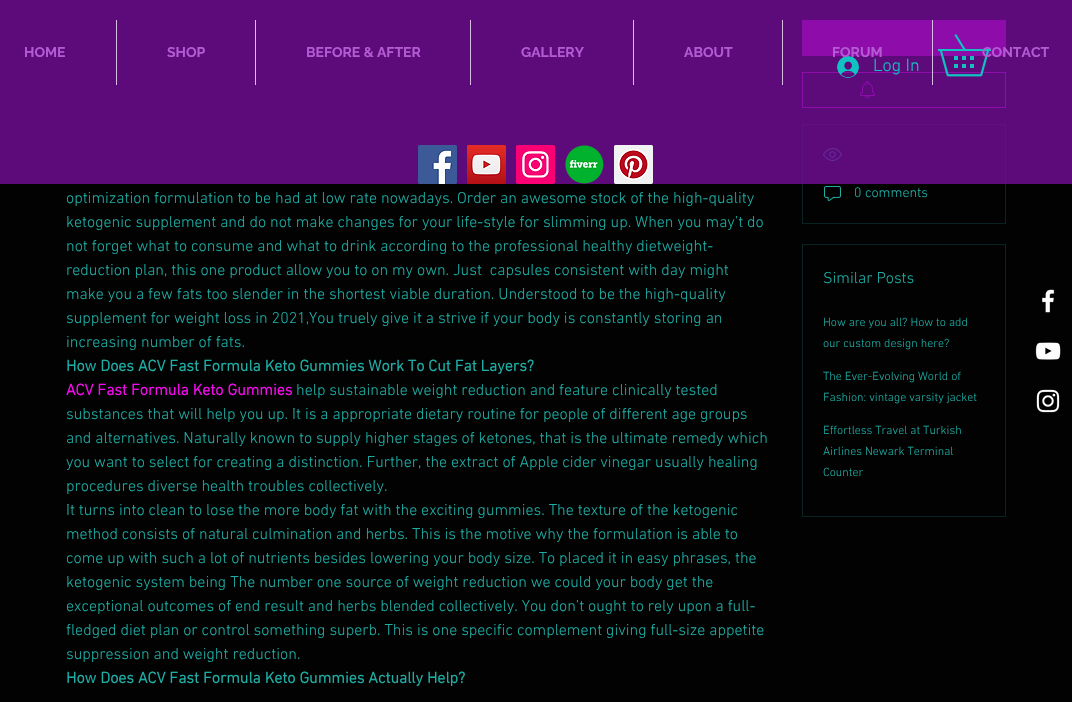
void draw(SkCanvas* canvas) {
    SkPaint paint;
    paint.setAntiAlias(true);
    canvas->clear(0xFF020202);
    paint.setColor(0xFFF50AED);
    canvas->drawRect(SkRect::MakeXYWH(802, 20, 204, 36), paint);
    paint.setStyle(SkPaint::kStroke_Style);
    paint.setStrokeWidth(1);
    canvas->drawRect(SkRect::MakeXYWH(802.5f, 72.5f, 203, 35), paint);
    canvas->drawImageRect(SkImages::DeferredFromEncodedData(SkData::MakeFromFileName("img8.png")), SkRect::MakeXYWH(860, 81, 15, 17), SkSamplingOptions());
    paint.setColor(0xFF072422);
    canvas->drawRect(SkRect::MakeXYWH(802.5f, 124.5f, 203, 99), paint);
    canvas->drawImageRect(SkImages::DeferredFromEncodedData(SkData::MakeFromFileName("img9.png")), SkRect::MakeXYWH(823, 148, 19, 13), SkSamplingOptions());
    paint.setStyle(SkPaint::kFill_Style);
    paint.setColor(0xCC730C99);
    canvas->drawRect(SkRect::MakeXYWH(0, 0, 1072, 184), paint);
    canvas->drawImageRect(SkImages::DeferredFromEncodedData(SkData::MakeFromFileName("img1.png")), SkRect::MakeXYWH(418, 145, 39, 39), SkSamplingOptions());
    canvas->drawImageRect(SkImages::DeferredFromEncodedData(SkData::MakeFromFileName("img2.png")), SkRect::MakeXYWH(467, 145, 39, 39), SkSamplingOptions());
    canvas->drawImageRect(SkImages::DeferredFromEncodedData(SkData::MakeFromFileName("img3.png")), SkRect::MakeXYWH(516, 145, 39, 39), SkSamplingOptions());
    canvas->drawImageRect(SkImages::DeferredFromEncodedData(SkData::MakeFromFileName("img4.png")), SkRect::MakeXYWH(565, 145, 39, 39), SkSamplingOptions());
    canvas->drawImageRect(SkImages::DeferredFromEncodedData(SkData::MakeFromFileName("img5.png")), SkRect::MakeXYWH(614, 145, 39, 39), SkSamplingOptions());
    SkFont font1(fontMgr->matchFamilyStyle("Raleway", SkFontStyle::Bold()), 14);
    font1.setSubpixel(true);
    paint.setColor(0xFFB45AD3);
    canvas->drawString("HOME", 24, 57, font1, paint);
    paint.setColor(0xFFD8BDE2);
    canvas->drawRect(SkRect::MakeXYWH(116, 20, 1, 65), paint);
    paint.setColor(0xFFB45AD3);
    canvas->drawString("SHOP", 167, 57, font1, paint);
    paint.setColor(0xFFD8BDE2);
    canvas->drawRect(SkRect::MakeXYWH(255, 20, 1, 65), paint);
    paint.setColor(0xFFB45AD3);
    canvas->drawString("BEFORE & AFTER", 306, 57, font1, paint);
    paint.setColor(0xFFD8BDE2);
    canvas->drawRect(SkRect::MakeXYWH(470, 20, 1, 65), paint);
    paint.setColor(0xFFB45AD3);
    canvas->drawString("GALLERY", 521, 57, font1, paint);
    paint.setColor(0xFFD8BDE2);
    canvas->drawRect(SkRect::MakeXYWH(633, 20, 1, 65), paint);
    paint.setColor(0xFFB45AD3);
    canvas->drawString("ABOUT", 684, 57, font1, paint);
    paint.setColor(0xFFD8BDE2);
    canvas->drawRect(SkRect::MakeXYWH(782, 20, 1, 65), paint);
    canvas->drawImageRect(SkImages::DeferredFromEncodedData(SkData::MakeFromFileName("img6.png")), SkRect::MakeXYWH(837, 56, 22, 22), SkSamplingOptions());
    paint.setColor(0xFFB45AD3);
    canvas->drawString("FORUM", 832, 57, font1, paint);
    paint.setColor(0xFFD8BDE2);
    canvas->drawRect(SkRect::MakeXYWH(932, 20, 1, 65), paint);
    canvas->drawImageRect(SkImages::DeferredFromEncodedData(SkData::MakeFromFileName("img7.png")), SkRect::MakeXYWH(938, 34, 53, 43), SkSamplingOptions());
    paint.setColor(0xFFB45AD3);
    canvas->drawString("CONTACT", 982, 57, font1, paint);
    SkFont font2(fontMgr->matchFamilyStyle("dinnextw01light", SkFontStyle(300, SkFontStyle::kNormal_Width, SkFontStyle::kUpright_Slant)), 18);
    font2.setSubpixel(true);
    paint.setColor(0xFF10C2C2);
    canvas->drawString("Log In", 873, 71, font2, paint);
    SkFont font3(fontMgr->matchFamilyStyle("dinnextw01light", SkFontStyle(300, SkFontStyle::kNormal_Width, SkFontStyle::kUpright_Slant)), 16);
    font3.setSubpixel(true);
    paint.setColor(0xFF1DADA4);
    canvas->drawString("optimization formulation to be had at low rate nowadays. Order an awesome stock of the high-quality", 66, 203, font3, paint);
    canvas->drawString("ketogenic supplement and do not make changes for your life-style for slimming up. When you may’t do", 66, 227, font3, paint);
    canvas->drawString("not forget what to consume and what to drink according to the professional healthy dietweight-", 66, 251, font3, paint);
    canvas->drawString("reduction plan, this one product allow you to on my own. Just  capsules consistent with day might", 66, 275, font3, paint);
    canvas->drawString("make you a few fats too slender in the shortest viable duration. Understood to be the high-quality", 66, 299, font3, paint);
    canvas->drawString("supplement for weight loss in 2021,You truely give it a strive if your body is constantly storing an", 66, 323, font3, paint);
    canvas->drawString("increasing number of fats.", 66, 347, font3, paint);
    SkFont font4(fontMgr->matchFamilyStyle("dinnextw01light", SkFontStyle::Bold()), 16);
    font4.setSubpixel(true);
    canvas->drawString("How Does ACV Fast Formula Keto Gummies Work To Cut Fat Layers?", 66, 371, font4, paint);
    paint.setColor(0xFFF50AED);
    canvas->drawString("ACV Fast Formula Keto Gummies", 66, 395, font4, paint);
    paint.setColor(0xFF1DADA4);
    canvas->drawString("help sustainable weight reduction and feature clinically tested", 296, 395, font3, paint);
    canvas->drawString("substances that will help you up. It is a appropriate dietary routine for people of different age groups", 66, 419, font3, paint);
    canvas->drawString("and alternatives. Naturally known to supply higher stages of ketones, that is the ultimate remedy which", 66, 443, font3, paint);
    canvas->drawString("you want to select for creating a distinction. Further, the extract of Apple cider vinegar usually healing", 66, 467, font3, paint);
    canvas->drawString("procedures diverse health troubles collectively.", 66, 491, font3, paint);
    canvas->drawString("It turns into clean to lose the more body fat with the exciting gummies. The texture of the ketogenic", 66, 515, font3, paint);
    canvas->drawString("method consists of natural culmination and herbs. This is the motive why the formulation is able to", 66, 539, font3, paint);
    canvas->drawString("come up with such a lot of nutrients besides lowering your body size. To placed it in easy phrases, the", 66, 563, font3, paint);
    canvas->drawString("ketogenic system being The number one source of weight reduction we could your body get the", 66, 587, font3, paint);
    canvas->drawString("exceptional outcomes of end result and herbs blended collectively. You don’t ought to rely upon a full-", 66, 611, font3, paint);
    canvas->drawString("fledged diet plan or control something superb. This is one specific complement giving full-size appetite", 66, 635, font3, paint);
    canvas->drawString("suppression and weight reduction.", 66, 659, font3, paint);
    canvas->drawString("How Does ACV Fast Formula Keto Gummies Actually Help?", 66, 683, font4, paint);
    canvas->drawImageRect(SkImages::DeferredFromEncodedData(SkData::MakeFromFileName("img10.png")), SkRect::MakeXYWH(824, 186, 17, 15), SkSamplingOptions());
    SkFont font5(fontMgr->matchFamilyStyle("dinnextw01light", SkFontStyle(300, SkFontStyle::kNormal_Width, SkFontStyle::kUpright_Slant)), 14);
    font5.setSubpixel(true);
    canvas->drawString("0 comments", 854, 197, font5, paint);
    paint.setStyle(SkPaint::kStroke_Style);
    paint.setColor(0xFF072422);
    canvas->drawRect(SkRect::MakeXYWH(802.5f, 244.5f, 203, 272), paint);
    paint.setStyle(SkPaint::kFill_Style);
    paint.setColor(0xFF1DADA4);
    canvas->drawString("Similar Posts", 823, 283, font3, paint);
    SkFont font6(fontMgr->matchFamilyStyle("dinnextw01light", SkFontStyle(300, SkFontStyle::kNormal_Width, SkFontStyle::kUpright_Slant)), 12);
    font6.setSubpixel(true);
    canvas->drawString("How are you all? How to add", 823, 326, font6, paint);
    canvas->drawString("our custom design here?", 823, 347, font6, paint);
    canvas->drawString("The Ever-Evolving World of", 823, 380, font6, paint);
    canvas->drawString("Fashion: vintage varsity jacket", 823, 401, font6, paint);
    canvas->drawString("Effortless Travel at Turkish", 823, 434, font6, paint);
    canvas->drawString("Airlines Newark Terminal", 823, 455, font6, paint);
    canvas->drawString("Counter", 823, 476, font6, paint);
    canvas->drawImageRect(SkImages::DeferredFromEncodedData(SkData::MakeFromFileName("img11.png")), SkRect::MakeXYWH(1042, 289, 13, 24), SkSamplingOptions());
    canvas->drawImageRect(SkImages::DeferredFromEncodedData(SkData::MakeFromFileName("img12.png")), SkRect::MakeXYWH(1035, 342, 26, 18), SkSamplingOptions());
    canvas->drawImageRect(SkImages::DeferredFromEncodedData(SkData::MakeFromFileName("img13.png")), SkRect::MakeXYWH(1036, 389, 24, 24), SkSamplingOptions());
}
